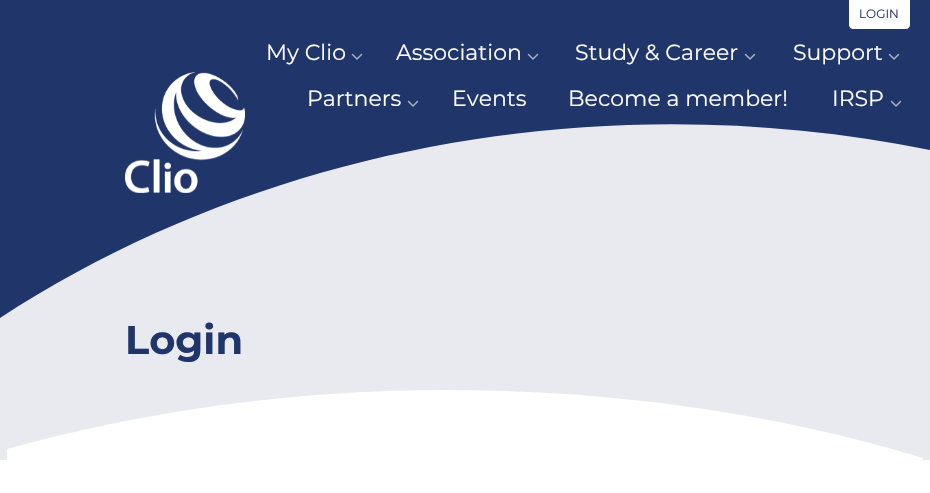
void draw(SkCanvas* canvas) {
    SkPaint paint;
    paint.setAntiAlias(true);
    canvas->clear(0xFFFFFFFF);
    paint.setColor(0xFFE9EAF0);
    canvas->drawRect(SkRect::MakeXYWH(0, 124, 930, 336), paint);
    paint.setColor(0xFF203569);
    canvas->drawPath(SkPathBuilder().moveTo(930, -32).lineTo(930, 150).cubicTo(614, 86, 272, 141, 0, 318).lineTo(0, -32).close().detach(), paint);
    paint.setColor(0xFFFFFFFF);
    canvas->drawPath(SkPathBuilder().moveTo(849, 0).lineTo(910, 0).lineTo(910, 25).cubicTo(910, 27, 908, 29, 906, 29).lineTo(853, 29).cubicTo(851, 29, 849, 27, 849, 25).close().detach(), paint);
    SkFont font1(fontMgr->matchFamilyStyle("Montserrat", SkFontStyle::Normal()), 12);
    font1.setSubpixel(true);
    paint.setColor(0xFF203569);
    canvas->drawString("LOGIN", 859, 18, font1, paint);
    canvas->drawImageRect(SkImages::DeferredFromEncodedData(SkData::MakeFromFileName("img1.png")), SkRect::MakeXYWH(125, 72, 120, 121), SkSamplingOptions());
    SkFont font2(fontMgr->matchFamilyStyle("Montserrat", SkFontStyle::Normal()), 22);
    font2.setSubpixel(true);
    paint.setColor(0xFFFFFFFF);
    canvas->drawString("My Clio", 266, 60, font2, paint);
    canvas->drawImageRect(SkImages::DeferredFromEncodedData(SkData::MakeFromFileName("img2.png")), SkRect::MakeXYWH(351, 53, 12, 7), SkSamplingOptions());
    canvas->drawString("Association", 396, 60, font2, paint);
    canvas->drawImageRect(SkImages::DeferredFromEncodedData(SkData::MakeFromFileName("img2.png")), SkRect::MakeXYWH(527, 53, 12, 7), SkSamplingOptions());
    canvas->drawString("Study & Career", 575, 60, font2, paint);
    canvas->drawImageRect(SkImages::DeferredFromEncodedData(SkData::MakeFromFileName("img2.png")), SkRect::MakeXYWH(744, 53, 12, 7), SkSamplingOptions());
    canvas->drawString("Support", 793, 60, font2, paint);
    canvas->drawImageRect(SkImages::DeferredFromEncodedData(SkData::MakeFromFileName("img2.png")), SkRect::MakeXYWH(888, 53, 12, 7), SkSamplingOptions());
    canvas->drawString("Partners", 307, 106, font2, paint);
    canvas->drawImageRect(SkImages::DeferredFromEncodedData(SkData::MakeFromFileName("img2.png")), SkRect::MakeXYWH(407, 100, 12, 7), SkSamplingOptions());
    canvas->drawString("Events", 452, 106, font2, paint);
    canvas->drawString("Become a member!", 568, 106, font2, paint);
    canvas->drawString("IRSP", 832, 106, font2, paint);
    canvas->drawImageRect(SkImages::DeferredFromEncodedData(SkData::MakeFromFileName("img2.png")), SkRect::MakeXYWH(890, 100, 12, 7), SkSamplingOptions());
    SkFont font3(fontMgr->matchFamilyStyle("Montserrat", SkFontStyle::Bold()), 40);
    font3.setSubpixel(true);
    paint.setColor(0xFF203569);
    canvas->drawString("Login", 125, 354, font3, paint);
    paint.setColor(0xFFFFFFFF);
    canvas->drawPath(SkPathBuilder().moveTo(444, 390).cubicTo(614, 390, 775, 413, 923, 458).lineTo(923, 461).lineTo(7, 461).lineTo(7, 449).cubicTo(144, 411, 292, 390, 444, 390).close().detach(), paint);
}
